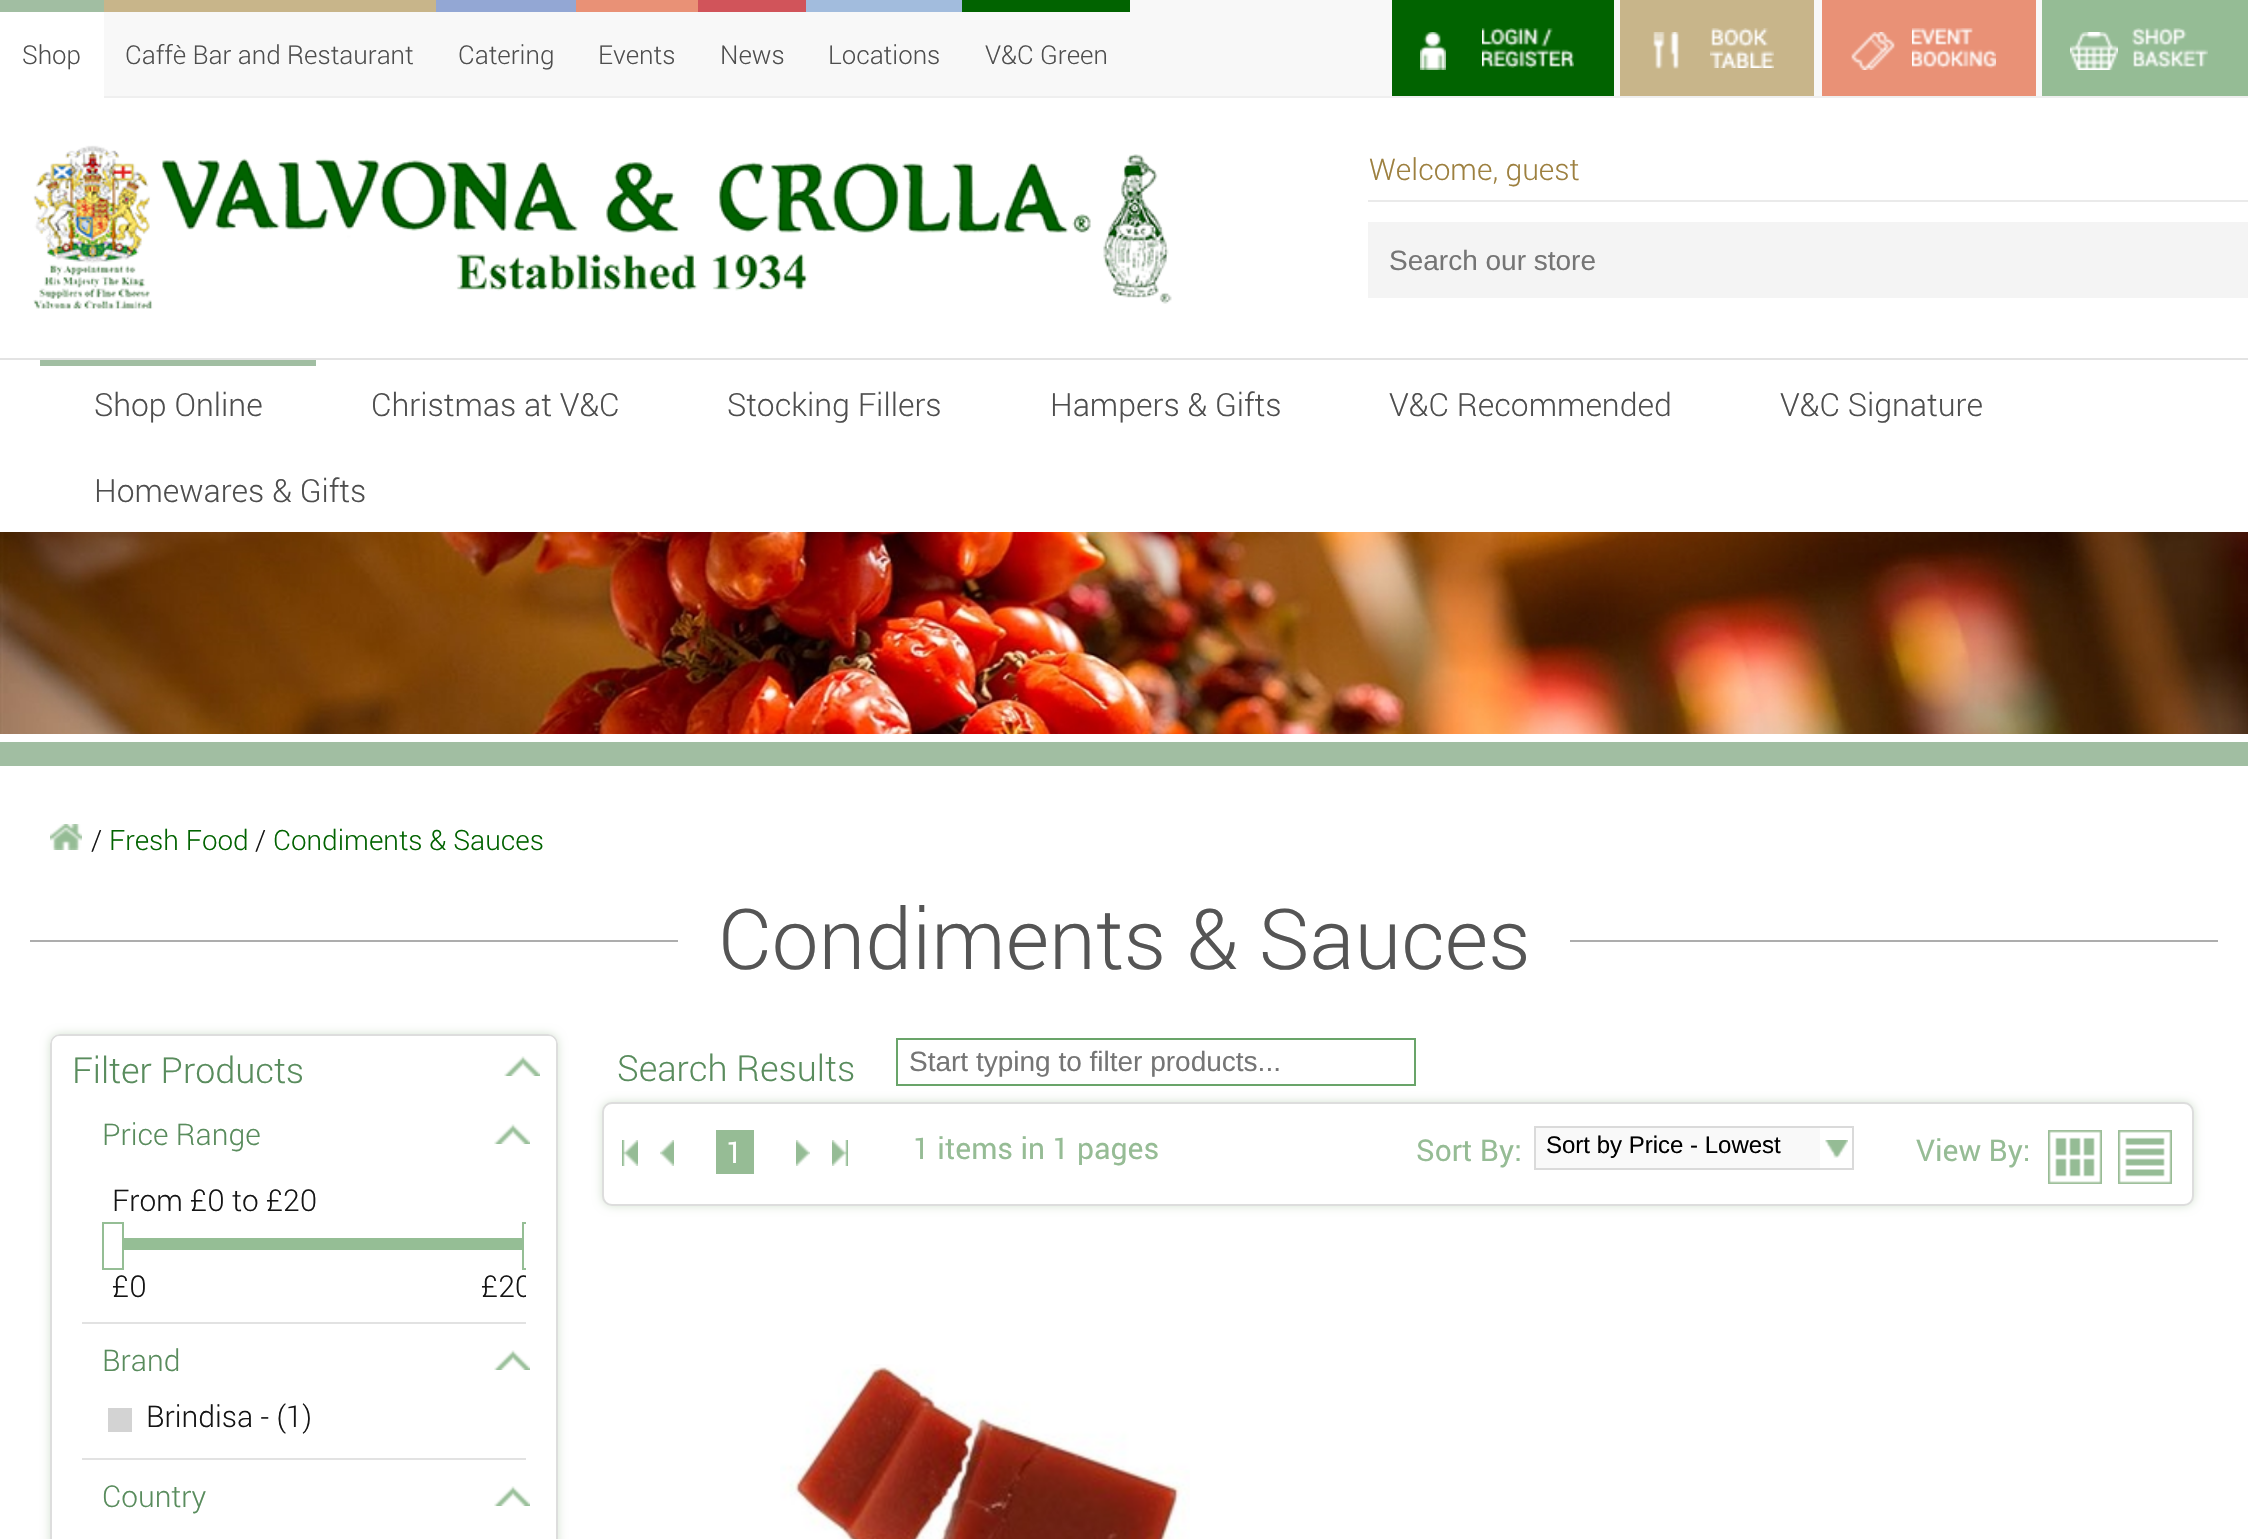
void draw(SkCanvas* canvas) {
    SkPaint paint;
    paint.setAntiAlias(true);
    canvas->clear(0xFFFFFFFF);
    paint.setColor(0xFFF8F8F8);
    canvas->drawRect(SkRect::MakeXYWH(104, 0, 1938, 96), paint);
    paint.setColor(0xFFEFEFEF);
    canvas->drawRect(SkRect::MakeXYWH(104, 96, 2144, 2), paint);
    paint.setColor(0xFFA1BEA2);
    canvas->drawRect(SkRect::MakeXYWH(0, 0, 104, 12), paint);
    SkFont font1(fontMgr->matchFamilyStyle("Roboto", SkFontStyle(300, SkFontStyle::kNormal_Width, SkFontStyle::kUpright_Slant)), 26);
    font1.setSubpixel(true);
    paint.setColor(0xFF4E4E4E);
    canvas->drawString("Shop", 22, 64, font1, paint);
    paint.setColor(0xFFC8B58A);
    canvas->drawRect(SkRect::MakeXYWH(104, 0, 332, 12), paint);
    paint.setColor(0xFF4E4E4E);
    canvas->drawString("Caffè Bar and Restaurant", 125, 64, font1, paint);
    paint.setColor(0xFF93A7D4);
    canvas->drawRect(SkRect::MakeXYWH(436, 0, 140, 12), paint);
    paint.setColor(0xFF4E4E4E);
    canvas->drawString("Catering", 458, 64, font1, paint);
    paint.setColor(0xFFE99176);
    canvas->drawRect(SkRect::MakeXYWH(576, 0, 122, 12), paint);
    paint.setColor(0xFF4E4E4E);
    canvas->drawString("Events", 598, 64, font1, paint);
    paint.setColor(0xFFD1545A);
    canvas->drawRect(SkRect::MakeXYWH(698, 0, 108, 12), paint);
    paint.setColor(0xFF4E4E4E);
    canvas->drawString("News", 720, 64, font1, paint);
    paint.setColor(0xFFA2BCDD);
    canvas->drawRect(SkRect::MakeXYWH(806, 0, 156, 12), paint);
    paint.setColor(0xFF4E4E4E);
    canvas->drawString("Locations", 828, 64, font1, paint);
    paint.setColor(0xFF016300);
    canvas->drawRect(SkRect::MakeXYWH(962, 0, 168, 12), paint);
    paint.setColor(0xFF4E4E4E);
    canvas->drawString("V&C Green", 985, 64, font1, paint);
    paint.setColor(0xFF016300);
    canvas->drawRect(SkRect::MakeXYWH(1392, 0, 222, 96), paint);
    canvas->drawImageRect(SkImages::DeferredFromEncodedData(SkData::MakeFromFileName("img1.png")), SkRect::MakeXYWH(1420, 32, 26, 38), SkSamplingOptions());
    canvas->drawImageRect(SkImages::DeferredFromEncodedData(SkData::MakeFromFileName("img2.png")), SkRect::MakeXYWH(1482, 28, 92, 40), SkSamplingOptions());
    paint.setColor(0xFFC8B58A);
    canvas->drawRect(SkRect::MakeXYWH(1620, 0, 194, 96), paint);
    canvas->drawImageRect(SkImages::DeferredFromEncodedData(SkData::MakeFromFileName("img3.png")), SkRect::MakeXYWH(1653, 32, 26, 37), SkSamplingOptions());
    canvas->drawImageRect(SkImages::DeferredFromEncodedData(SkData::MakeFromFileName("img4.png")), SkRect::MakeXYWH(1710, 28, 64, 40), SkSamplingOptions());
    paint.setColor(0xFFE99176);
    canvas->drawRect(SkRect::MakeXYWH(1822, 0, 214, 96), paint);
    canvas->drawImageRect(SkImages::DeferredFromEncodedData(SkData::MakeFromFileName("img5.png")), SkRect::MakeXYWH(1851, 32, 44, 38), SkSamplingOptions());
    canvas->drawImageRect(SkImages::DeferredFromEncodedData(SkData::MakeFromFileName("img6.png")), SkRect::MakeXYWH(1912, 28, 84, 40), SkSamplingOptions());
    paint.setColor(0xFF95BC95);
    canvas->drawRect(SkRect::MakeXYWH(2042, 0, 206, 96), paint);
    canvas->drawImageRect(SkImages::DeferredFromEncodedData(SkData::MakeFromFileName("img7.png")), SkRect::MakeXYWH(2070, 32, 48, 38), SkSamplingOptions());
    canvas->drawImageRect(SkImages::DeferredFromEncodedData(SkData::MakeFromFileName("img8.png")), SkRect::MakeXYWH(2132, 28, 76, 40), SkSamplingOptions());
    canvas->drawImageRect(SkImages::DeferredFromEncodedData(SkData::MakeFromFileName("img9.png")), SkRect::MakeXYWH(33, 145, 1139, 164), SkSamplingOptions());
    paint.setColor(0xFFEAEAEA);
    canvas->drawRect(SkRect::MakeXYWH(1368, 200, 880, 2), paint);
    SkFont font2(fontMgr->matchFamilyStyle("Roboto", SkFontStyle(300, SkFontStyle::kNormal_Width, SkFontStyle::kUpright_Slant)), 30);
    font2.setSubpixel(true);
    paint.setColor(0xFF9D803F);
    canvas->drawString("Welcome, guest", 1369, 180, font2, paint);
    paint.setColor(0xFFF4F4F4);
    canvas->drawRect(SkRect::MakeXYWH(1368, 222, 880, 76), paint);
    SkFont font3(fontMgr->matchFamilyStyle("Liberation Sans", SkFontStyle::Normal()), 28);
    font3.setSubpixel(true);
    paint.setColor(0xFF757575);
    canvas->drawString("Search our store", 1389, 270, font3, paint);
    paint.setColor(0xFFE3E3E3);
    canvas->drawRect(SkRect::MakeXYWH(0, 358, 2248, 2), paint);
    paint.setColor(0xFFA1BEA2);
    canvas->drawRect(SkRect::MakeXYWH(40, 360, 276, 6), paint);
    SkFont font4(fontMgr->matchFamilyStyle("Roboto", SkFontStyle(300, SkFontStyle::kNormal_Width, SkFontStyle::kUpright_Slant)), 32);
    font4.setSubpixel(true);
    paint.setColor(0xFF4E4E4E);
    canvas->drawString("Shop Online", 94, 416, font4, paint);
    canvas->drawString("Christmas at V&C", 371, 416, font4, paint);
    canvas->drawString("Stocking Fillers", 727, 416, font4, paint);
    canvas->drawString("Hampers & Gifts", 1050, 416, font4, paint);
    canvas->drawString("V&C Recommended", 1389, 416, font4, paint);
    canvas->drawString("V&C Signature", 1780, 416, font4, paint);
    canvas->drawString("Homewares & Gifts", 94, 502, font4, paint);
    canvas->drawImageRect(SkImages::DeferredFromEncodedData(SkData::MakeFromFileName("img10.png")), SkRect::MakeXYWH(0, 532, 2248, 202), SkSamplingOptions());
    paint.setColor(0xFFA1BEA2);
    canvas->drawRect(SkRect::MakeXYWH(0, 742, 2248, 24), paint);
    canvas->drawImageRect(SkImages::DeferredFromEncodedData(SkData::MakeFromFileName("img11.png")), SkRect::MakeXYWH(50, 824, 32, 26), SkSamplingOptions());
    SkFont font5(fontMgr->matchFamilyStyle("Roboto", SkFontStyle(300, SkFontStyle::kNormal_Width, SkFontStyle::kUpright_Slant)), 28);
    font5.setSubpixel(true);
    paint.setColor(0xFF151515);
    canvas->drawString("/", 91, 850, font5, paint);
    paint.setColor(0xFF016300);
    canvas->drawString("Fresh Food", 109, 850, font5, paint);
    paint.setColor(0xFF151515);
    canvas->drawString("/", 255, 850, font5, paint);
    paint.setColor(0xFF016300);
    canvas->drawString("Condiments & Sauces", 273, 850, font5, paint);
    paint.setColor(0xFFADADAD);
    canvas->drawRect(SkRect::MakeXYWH(30, 940, 2188, 2), paint);
    paint.setColor(0xFFFFFFFF);
    canvas->drawRect(SkRect::MakeXYWH(678, 940, 892, 2), paint);
    SkFont font6(fontMgr->matchFamilyStyle("Roboto", SkFontStyle(300, SkFontStyle::kNormal_Width, SkFontStyle::kUpright_Slant)), 84);
    font6.setSubpixel(true);
    paint.setColor(0xFF555555);
    canvas->drawString("Condiments & Sauces", 718, 969, font6, paint);
    canvas->save();
    canvas->clipPath(SkPathBuilder(SkPathFillType::kEvenOdd).moveTo(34, 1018).lineTo(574, 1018).lineTo(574, 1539).lineTo(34, 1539).close().moveTo(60, 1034).lineTo(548, 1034).cubicTo(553.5f, 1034, 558, 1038.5f, 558, 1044).lineTo(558, 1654).cubicTo(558, 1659.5f, 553.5f, 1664, 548, 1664).lineTo(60, 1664).cubicTo(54.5f, 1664, 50, 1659.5f, 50, 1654).lineTo(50, 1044).cubicTo(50, 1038.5f, 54.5f, 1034, 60, 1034).close().detach(), true);
    paint.setColor(0xFFD5E3D2);
    paint.setMaskFilter(SkMaskFilter::MakeBlur(kNormal_SkBlurStyle, 5));
    canvas->drawRoundRect(SkRect::MakeXYWH(50, 1034, 508, 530), 10, 10, paint);
    paint.setMaskFilter(nullptr);
    canvas->restore();
    paint.setStyle(SkPaint::kStroke_Style);
    paint.setStrokeWidth(2);
    paint.setColor(0xFFDDDDDD);
    canvas->drawRoundRect(SkRect::MakeXYWH(51, 1035, 506, 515), 9, 9, paint);
    paint.setStyle(SkPaint::kFill_Style);
    paint.setColor(0xFFFFFFFF);
    canvas->drawPath(SkPathBuilder().moveTo(60, 1036).lineTo(548, 1036).cubicTo(552.5f, 1036, 556, 1039.5f, 556, 1044).lineTo(556, 1104).lineTo(52, 1104).lineTo(52, 1044).cubicTo(52, 1039.5f, 55.5f, 1036, 60, 1036).close().detach(), paint);
    SkFont font7(fontMgr->matchFamilyStyle("Roboto", SkFontStyle(300, SkFontStyle::kNormal_Width, SkFontStyle::kUpright_Slant)), 36);
    font7.setSubpixel(true);
    paint.setColor(0xFF598C5D);
    canvas->drawString("Filter Products", 72, 1083, font7, paint);
    canvas->drawImageRect(SkImages::DeferredFromEncodedData(SkData::MakeFromFileName("img12.png")), SkRect::MakeXYWH(504, 1056, 36, 20), SkSamplingOptions());
    paint.setColor(0xFFE2E2E2);
    canvas->drawRect(SkRect::MakeXYWH(82, 1322, 444, 2), paint);
    paint.setColor(0xFF598C5D);
    canvas->drawString("Price Range", 102, 1145, font2, paint);
    canvas->drawImageRect(SkImages::DeferredFromEncodedData(SkData::MakeFromFileName("img12.png")), SkRect::MakeXYWH(494, 1124, 36, 20), SkSamplingOptions());
    paint.setColor(0xFF151515);
    canvas->drawString("From £0 to £20", 112, 1211, font2, paint);
    paint.setStyle(SkPaint::kStroke_Style);
    paint.setColor(0xFF95BE95);
    canvas->drawRect(SkRect::MakeXYWH(103, 1223, 20, 46), paint);
    paint.setStyle(SkPaint::kFill_Style);
    canvas->drawRect(SkRect::MakeXYWH(124, 1238, 398, 12), paint);
    canvas->save();
    canvas->clipRect(SkRect::MakeXYWH(82, 1166, 444, 156));
    paint.setStyle(SkPaint::kStroke_Style);
    canvas->drawRect(SkRect::MakeXYWH(523, 1223, 20, 46), paint);
    canvas->restore();
    paint.setStyle(SkPaint::kFill_Style);
    paint.setColor(0xFF151515);
    canvas->drawString("£0", 112, 1297, font2, paint);
    canvas->save();
    canvas->clipRect(SkRect::MakeXYWH(82, 1166, 444, 156));
    canvas->drawString("£20", 481, 1297, font2, paint);
    canvas->restore();
    paint.setColor(0xFFE2E2E2);
    canvas->drawRect(SkRect::MakeXYWH(82, 1458, 444, 2), paint);
    paint.setColor(0xFF598C5D);
    canvas->drawString("Brand", 102, 1371, font2, paint);
    canvas->drawImageRect(SkImages::DeferredFromEncodedData(SkData::MakeFromFileName("img12.png")), SkRect::MakeXYWH(494, 1350, 36, 20), SkSamplingOptions());
    paint.setColor(0xFFD3D3D3);
    canvas->drawRect(SkRect::MakeXYWH(108, 1408, 24, 24), paint);
    paint.setColor(0xFF151515);
    canvas->drawString("Brindisa - (1)", 146, 1427, font2, paint);
    paint.setColor(0xFF598C5D);
    canvas->drawString("Country", 102, 1507, font2, paint);
    canvas->drawImageRect(SkImages::DeferredFromEncodedData(SkData::MakeFromFileName("img12.png")), SkRect::MakeXYWH(494, 1486, 36, 20), SkSamplingOptions());
    canvas->drawString("Search Results", 617, 1081, font7, paint);
    paint.setStyle(SkPaint::kStroke_Style);
    paint.setColor(0xFF69A469);
    canvas->drawRect(SkRect::MakeXYWH(897, 1039, 518, 46), paint);
    paint.setStyle(SkPaint::kFill_Style);
    paint.setColor(0xFF757575);
    canvas->drawString("Start typing to filter products...", 909, 1071, font3, paint);
    paint.setColor(0xFFD5E3D2);
    paint.setMaskFilter(SkMaskFilter::MakeBlur(kNormal_SkBlurStyle, 5));
    canvas->drawRoundRect(SkRect::MakeXYWH(602, 1102, 1592, 104), 10, 10, paint);
    paint.setMaskFilter(nullptr);
    paint.setColor(0xFFFFFFFF);
    canvas->drawRoundRect(SkRect::MakeXYWH(603, 1103, 1590, 102), 9, 9, paint);
    paint.setStyle(SkPaint::kStroke_Style);
    paint.setColor(0xFFDDDDDD);
    canvas->drawRoundRect(SkRect::MakeXYWH(603, 1103, 1590, 102), 9, 9, paint);
    canvas->drawImageRect(SkImages::DeferredFromEncodedData(SkData::MakeFromFileName("img13.png")), SkRect::MakeXYWH(622, 1140, 16, 26), SkSamplingOptions());
    canvas->drawImageRect(SkImages::DeferredFromEncodedData(SkData::MakeFromFileName("img14.png")), SkRect::MakeXYWH(660, 1140, 14, 26), SkSamplingOptions());
    paint.setStyle(SkPaint::kFill_Style);
    paint.setColor(0xFF96BC95);
    canvas->drawRect(SkRect::MakeXYWH(716, 1130, 38, 44), paint);
    SkFont font8(fontMgr->matchFamilyStyle("roboto", SkFontStyle::Normal()), 30);
    font8.setSubpixel(true);
    paint.setColor(0xFFFFFFFF);
    canvas->drawString("1", 726, 1163, font8, paint);
    canvas->drawImageRect(SkImages::DeferredFromEncodedData(SkData::MakeFromFileName("img15.png")), SkRect::MakeXYWH(796, 1140, 14, 26), SkSamplingOptions());
    canvas->drawImageRect(SkImages::DeferredFromEncodedData(SkData::MakeFromFileName("img16.png")), SkRect::MakeXYWH(832, 1140, 16, 26), SkSamplingOptions());
    paint.setColor(0xFF96BC95);
    canvas->drawString("1 items in 1 pages", 913, 1159, font8, paint);
    canvas->drawString("Sort By:", 1416, 1161, font8, paint);
    canvas->drawImageRect(SkImages::DeferredFromEncodedData(SkData::MakeFromFileName("img17.png")), SkRect::MakeXYWH(1825, 1140, 23, 18), SkSamplingOptions());
    paint.setColor(0xFFDADADA);
    canvas->drawRect(SkRect::MakeXYWH(1534, 1126, 320, 2), paint);
    canvas->drawRect(SkRect::MakeXYWH(1852, 1126, 2, 44), paint);
    canvas->drawRect(SkRect::MakeXYWH(1534, 1168, 320, 2), paint);
    canvas->drawImageRect(SkImages::DeferredFromEncodedData(SkData::MakeFromFileName("img18.png")), SkRect::MakeXYWH(1825, 1140, 23, 18), SkSamplingOptions());
    paint.setColor(0xFFF9F9F9);
    canvas->drawRect(SkRect::MakeXYWH(1536, 1128, 284, 40), paint);
    paint.setColor(0xFFDADADA);
    canvas->drawRect(SkRect::MakeXYWH(1534, 1126, 2, 44), paint);
    SkFont font9(fontMgr->matchFamilyStyle("Liberation Sans", SkFontStyle::Normal()), 24);
    font9.setSubpixel(true);
    paint.setColor(0xFF000000);
    canvas->drawString("Sort by Price - Lowest", 1546, 1153, font9, paint);
    paint.setColor(0xFF96BC95);
    canvas->drawString("View By:", 1916, 1161, font8, paint);
    canvas->drawImageRect(SkImages::DeferredFromEncodedData(SkData::MakeFromFileName("img19.png")), SkRect::MakeXYWH(2048, 1130, 54, 54), SkSamplingOptions());
    canvas->drawImageRect(SkImages::DeferredFromEncodedData(SkData::MakeFromFileName("img20.png")), SkRect::MakeXYWH(2118, 1130, 54, 54), SkSamplingOptions());
    canvas->drawImageRect(SkImages::DeferredFromEncodedData(SkData::MakeFromFileName("img21.png")), SkRect::MakeXYWH(780, 1364, 410, 175), SkSamplingOptions());
}
